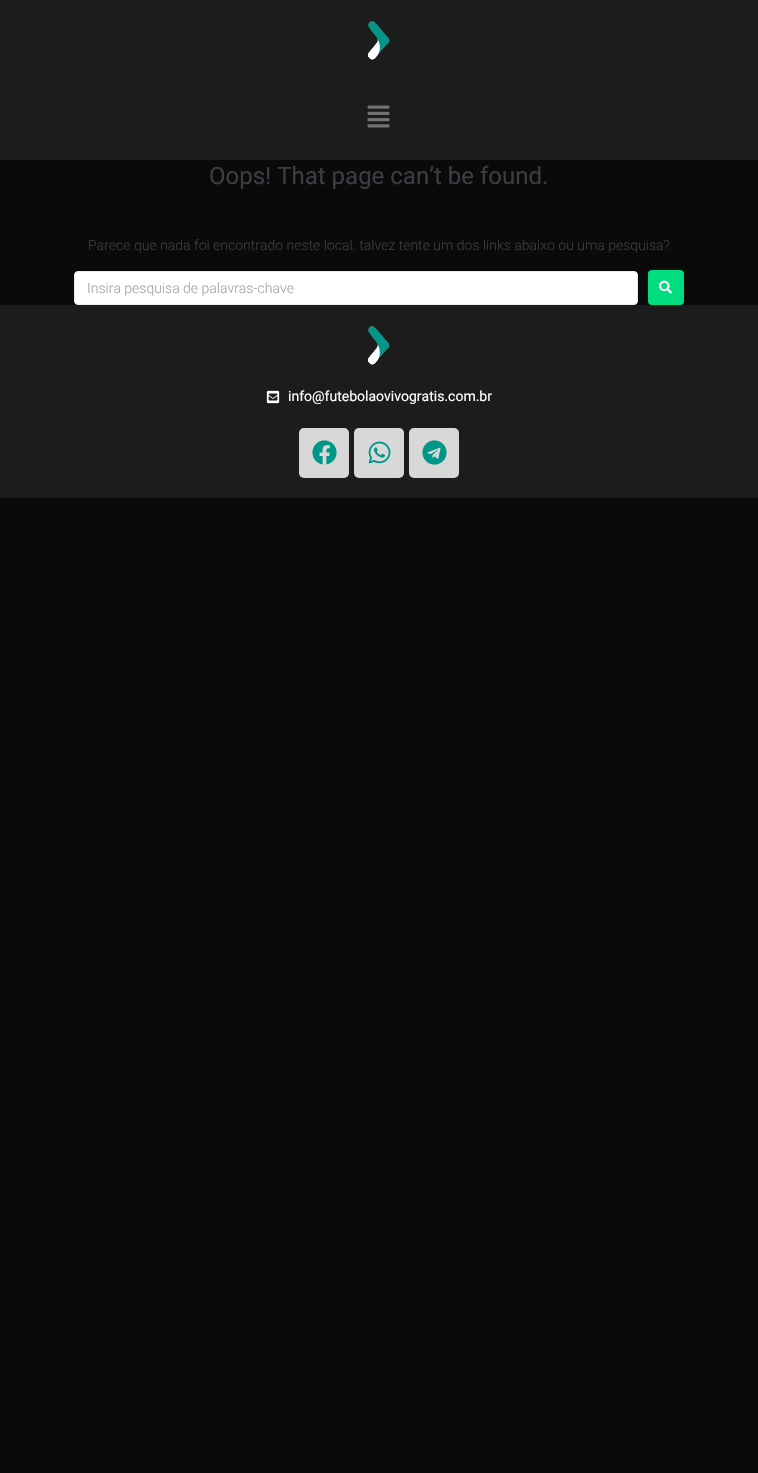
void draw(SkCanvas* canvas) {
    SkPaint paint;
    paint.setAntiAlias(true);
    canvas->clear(0xFF0A0A0A);
    paint.setColor(0xFF1C1C1C);
    canvas->drawRect(SkRect::MakeXYWH(0, 0, 758, 160), paint);
    canvas->drawImageRect(SkImages::DeferredFromEncodedData(SkData::MakeFromFileName("img1.png")), SkRect::MakeXYWH(368, 21, 22, 39), SkSamplingOptions());
    canvas->drawImageRect(SkImages::DeferredFromEncodedData(SkData::MakeFromFileName("img2.png")), SkRect::MakeXYWH(367, 105, 23, 23), SkSamplingOptions());
    SkFont font1(fontMgr->matchFamilyStyle("Roboto", SkFontStyle::Normal()), 24);
    font1.setSubpixel(true);
    paint.setColor(0xFF3B3D42);
    canvas->drawString("Oops! That page can’t be found.", 209, 184, font1, paint);
    SkFont font2(fontMgr->matchFamilyStyle("Roboto", SkFontStyle(300, SkFontStyle::kNormal_Width, SkFontStyle::kUpright_Slant)), 14);
    font2.setSubpixel(true);
    canvas->drawString("Parece que nada foi encontrado neste local. talvez tente um dos links abaixo ou uma pesquisa?", 88, 250, font2, paint);
    paint.setColor(0xFFFFFFFF);
    canvas->drawRoundRect(SkRect::MakeXYWH(74.5f, 271.5f, 563, 33), 3.5f, 3.5f, paint);
    paint.setStyle(SkPaint::kStroke_Style);
    paint.setStrokeWidth(1);
    paint.setColor(0xFFEBECED);
    canvas->drawRoundRect(SkRect::MakeXYWH(74.5f, 271.5f, 563, 33), 3.5f, 3.5f, paint);
    paint.setStyle(SkPaint::kFill_Style);
    paint.setColor(0xFFA1A2A4);
    canvas->drawString("Insira pesquisa de palavras-chave", 87, 293, font2, paint);
    paint.setColor(0xFF00DD80);
    canvas->drawRoundRect(SkRect::MakeXYWH(648, 270, 36, 35), 4, 4, paint);
    canvas->drawImageRect(SkImages::DeferredFromEncodedData(SkData::MakeFromFileName("img3.png")), SkRect::MakeXYWH(659, 280, 13, 14), SkSamplingOptions());
    paint.setColor(0xFF1C1C1C);
    canvas->drawRect(SkRect::MakeXYWH(0, 305, 758, 193), paint);
    canvas->drawImageRect(SkImages::DeferredFromEncodedData(SkData::MakeFromFileName("img1.png")), SkRect::MakeXYWH(368, 326, 22, 39), SkSamplingOptions());
    canvas->drawImageRect(SkImages::DeferredFromEncodedData(SkData::MakeFromFileName("img4.png")), SkRect::MakeXYWH(266, 390, 14, 14), SkSamplingOptions());
    SkFont font3(fontMgr->matchFamilyStyle("Roboto", SkFontStyle::Normal()), 14);
    font3.setSubpixel(true);
    paint.setColor(0xFFFFFFFF);
    canvas->drawString("info@futebolaovivogratis.com.br", 288, 401, font3, paint);
    paint.setColor(0xFFD8D8D8);
    canvas->drawRoundRect(SkRect::MakeXYWH(299, 428, 50, 50), 5, 5, paint);
    canvas->drawImageRect(SkImages::DeferredFromEncodedData(SkData::MakeFromFileName("img5.png")), SkRect::MakeXYWH(312, 440, 25, 25), SkSamplingOptions());
    canvas->drawRoundRect(SkRect::MakeXYWH(354, 428, 50, 50), 5, 5, paint);
    canvas->drawImageRect(SkImages::DeferredFromEncodedData(SkData::MakeFromFileName("img6.png")), SkRect::MakeXYWH(368, 441, 23, 23), SkSamplingOptions());
    canvas->drawRoundRect(SkRect::MakeXYWH(409, 428, 50, 50), 5, 5, paint);
    canvas->drawImageRect(SkImages::DeferredFromEncodedData(SkData::MakeFromFileName("img7.png")), SkRect::MakeXYWH(422, 440, 25, 25), SkSamplingOptions());
}
